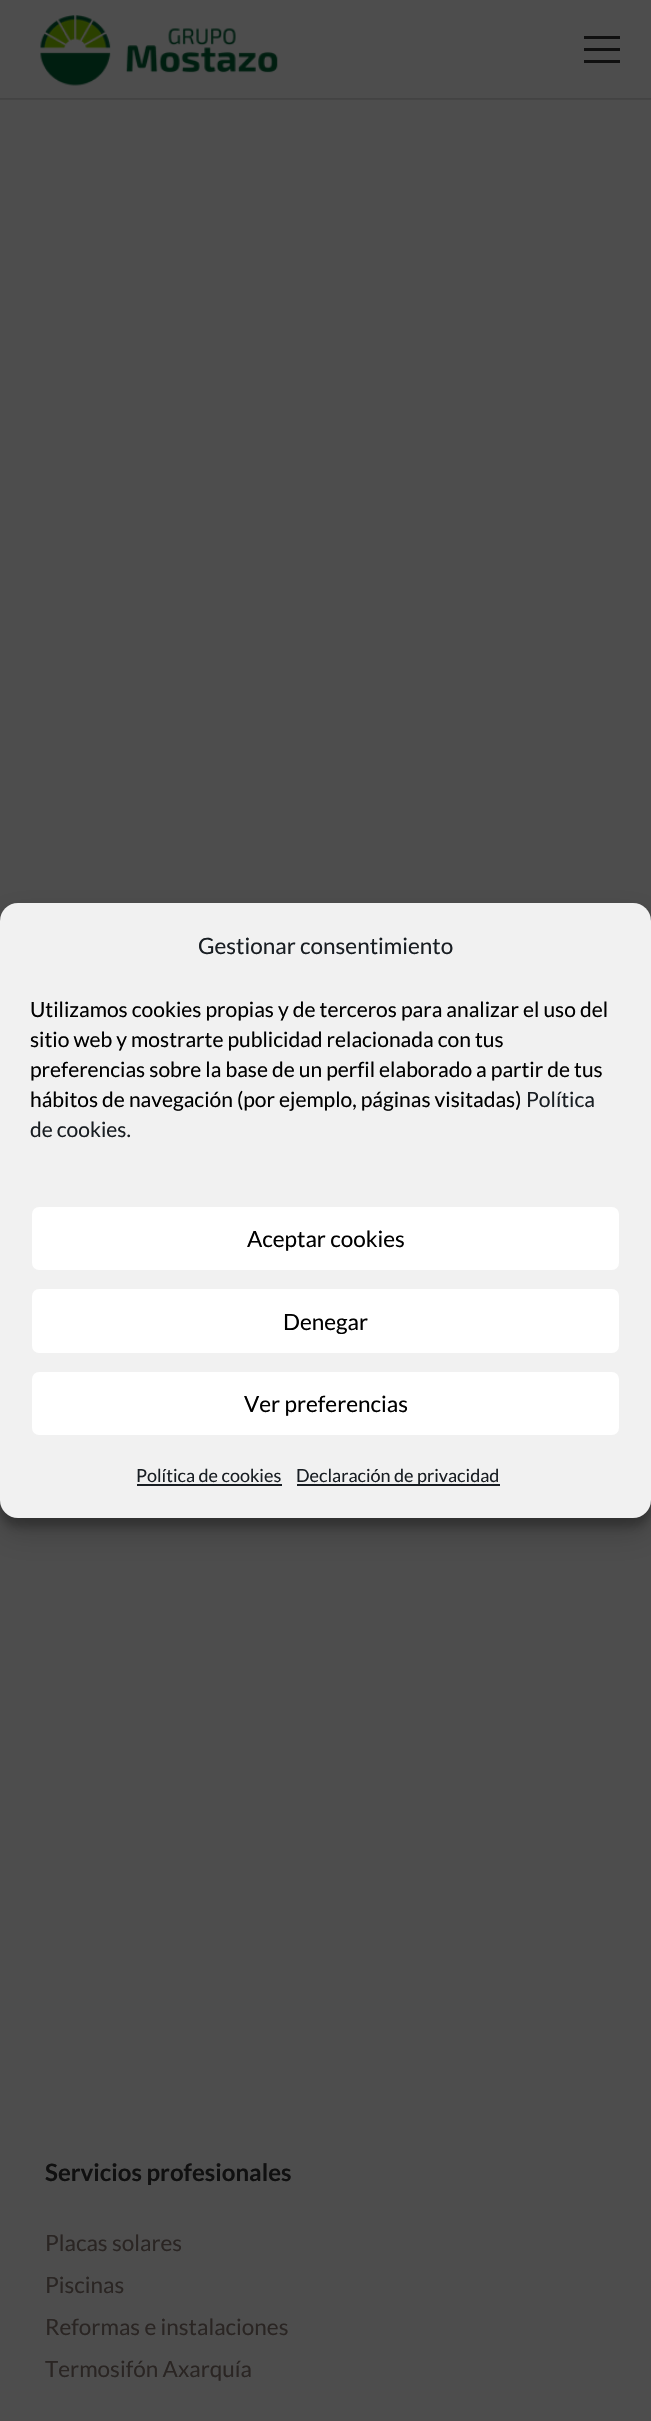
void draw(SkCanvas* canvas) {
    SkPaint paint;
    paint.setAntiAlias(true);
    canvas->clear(0xFF4D4D4D);
    paint.setColor(0xFF4A4A4A);
    canvas->drawRect(SkRect::MakeXYWH(0, 98, 651, 1), paint);
    paint.setColor(0x1A000000);
    canvas->drawRect(SkRect::MakeXYWH(0, 98, 651, 2), paint);
    canvas->drawImageRect(SkImages::DeferredFromEncodedData(SkData::MakeFromFileName("img1.png")), SkRect::MakeXYWH(40, 15, 238, 71), SkSamplingOptions());
    paint.setColor(0xFF101010);
    canvas->drawRect(SkRect::MakeXYWH(584, 60, 36, 3), paint);
    canvas->drawRect(SkRect::MakeXYWH(584, 36, 36, 3), paint);
    canvas->drawRect(SkRect::MakeXYWH(584, 48, 36, 3), paint);
    paint.setColor(0x3B000000);
    paint.setMaskFilter(SkMaskFilter::MakeBlur(kNormal_SkBlurStyle, 4.5f));
    canvas->drawRoundRect(SkRect::MakeXYWH(0, 912, 651, 615), 18, 18, paint);
    paint.setMaskFilter(nullptr);
    paint.setColor(0x30000000);
    paint.setMaskFilter(SkMaskFilter::MakeBlur(kNormal_SkBlurStyle, 15));
    canvas->drawRoundRect(SkRect::MakeXYWH(0, 918, 651, 615), 18, 18, paint);
    paint.setMaskFilter(nullptr);
    paint.setColor(0xFFF1F1F1);
    canvas->drawRoundRect(SkRect::MakeXYWH(0, 903, 651, 615), 18, 18, paint);
    SkFont font1(fontMgr->matchFamilyStyle("Lato", SkFontStyle::Normal()), 22.5f);
    font1.setSubpixel(true);
    paint.setColor(0xFF191E23);
    canvas->drawString("Gestionar consentimiento", 198, 954, font1, paint);
    SkFont font2(fontMgr->matchFamilyStyle("Lato", SkFontStyle::Normal()), 21);
    font2.setSubpixel(true);
    paint.setColor(0xFF000000);
    canvas->drawString("Utilizamos cookies propias y de terceros para analizar el uso del", 30, 1017, font2, paint);
    canvas->drawString("sitio web y mostrarte publicidad relacionada con tus", 30, 1047, font2, paint);
    canvas->drawString("preferencias sobre la base de un perfil elaborado a partir de tus", 30, 1077, font2, paint);
    canvas->drawString("hábitos de navegación (por ejemplo, páginas visitadas)", 30, 1107, font2, paint);
    paint.setColor(0xFF191E23);
    canvas->drawString("Política", 526, 1107, font2, paint);
    canvas->drawString("de cookies.", 30, 1137, font2, paint);
    paint.setColor(0xFFFFFFFF);
    canvas->drawRoundRect(SkRect::MakeXYWH(31, 1206, 589, 65), 8, 8, paint);
    paint.setStyle(SkPaint::kStroke_Style);
    paint.setStrokeWidth(2);
    paint.setColor(0xFFF1F1F1);
    canvas->drawRoundRect(SkRect::MakeXYWH(31, 1206, 589, 65), 8, 8, paint);
    paint.setStyle(SkPaint::kFill_Style);
    paint.setColor(0xFF000000);
    canvas->drawString("Aceptar cookies", 247, 1247, font1, paint);
    paint.setColor(0xFFFFFFFF);
    canvas->drawRoundRect(SkRect::MakeXYWH(31, 1288, 589, 66), 8, 8, paint);
    paint.setStyle(SkPaint::kStroke_Style);
    paint.setColor(0xFFF1F1F1);
    canvas->drawRoundRect(SkRect::MakeXYWH(31, 1288, 589, 66), 8, 8, paint);
    paint.setStyle(SkPaint::kFill_Style);
    paint.setColor(0xFF000000);
    canvas->drawString("Denegar", 283, 1330, font1, paint);
    paint.setColor(0xFFFFFFFF);
    canvas->drawRoundRect(SkRect::MakeXYWH(31, 1371, 589, 65), 8, 8, paint);
    paint.setStyle(SkPaint::kStroke_Style);
    paint.setColor(0xFFF1F1F1);
    canvas->drawRoundRect(SkRect::MakeXYWH(31, 1371, 589, 65), 8, 8, paint);
    paint.setStyle(SkPaint::kFill_Style);
    paint.setColor(0xFF000000);
    canvas->drawString("Ver preferencias", 244, 1412, font1, paint);
    SkFont font3(fontMgr->matchFamilyStyle("Lato", SkFontStyle::Normal()), 18);
    font3.setSubpixel(true);
    paint.setColor(0xFF191E23);
    canvas->drawString("Política de cookies", 136, 1482, font3, paint);
    canvas->drawRect(SkRect::MakeXYWH(137, 1484, 145, 2), paint);
    canvas->drawRect(SkRect::MakeXYWH(297, 1484, 203, 2), paint);
    canvas->drawString("Declaración de privacidad", 296, 1482, font3, paint);
    SkFont font4(fontMgr->matchFamilyStyle("Lato", SkFontStyle::Bold()), 24);
    font4.setSubpixel(true);
    paint.setColor(0xFF101010);
    canvas->drawString("Servicios profesionales", 45, 2181, font4, paint);
    paint.setColor(0xFF2A2523);
    canvas->drawString("Placas solares", 45, 2251, font1, paint);
    canvas->drawString("Piscinas", 45, 2293, font1, paint);
    canvas->drawString("Reformas e instalaciones", 45, 2335, font1, paint);
    canvas->drawString("Termosifón Axarquía", 45, 2377, font1, paint);
}
